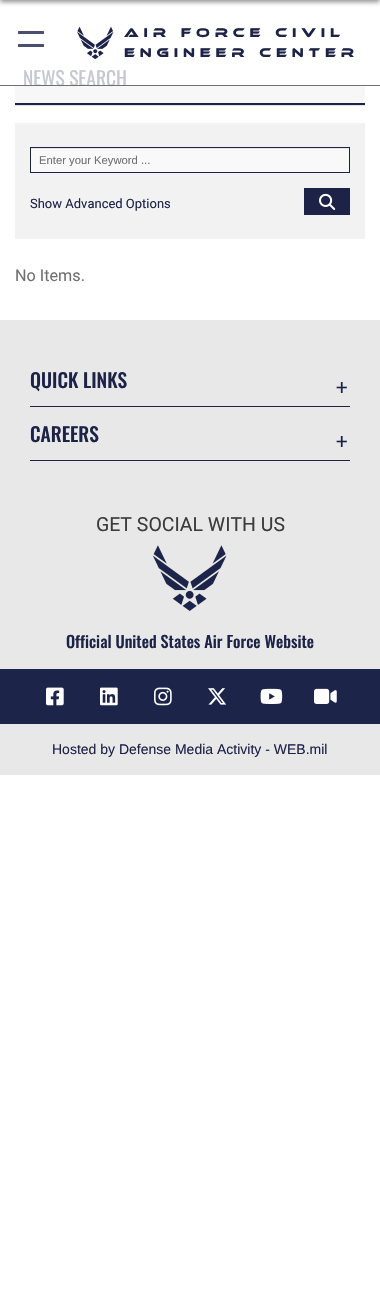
void draw(SkCanvas* canvas) {
    SkPaint paint;
    paint.setAntiAlias(true);
    auto spacedText = [&](const char* s, float x, float y, const SkFont& font, const SkPaint& ink, float letter, float word) {
        std::vector<SkGlyphID> glyphs(font.countText(s, strlen(s), SkTextEncoding::kUTF8));
        std::vector<float> xs(glyphs.size());
        font.textToGlyphs(s, strlen(s), SkTextEncoding::kUTF8, glyphs);
        font.getXPos(glyphs, xs, x);
        float extra = 0;
        for (size_t i = 0; i < glyphs.size(); i++) {
            xs[i] += extra;
            extra += letter + word * (glyphs[i] == font.unicharToGlyph(' '));
        }
        canvas->drawTextBlob(SkTextBlob::MakeFromPosHGlyphs(glyphs, xs, y, font), 0, 0, ink);
    };
    canvas->clear(0xFFFFFFFF);
    paint.setColor(0x801A1A1A);
    paint.setMaskFilter(SkMaskFilter::MakeBlur(kNormal_SkBlurStyle, 2.5f));
    canvas->drawRect(SkRect::MakeXYWH(0, -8, 380, 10), paint);
    paint.setMaskFilter(nullptr);
    {
        const SkColor colors[] = {0xFFFFFFFF, 0xFFFFFFFF, 0xFFF7F7F7, 0xFFF7F7F7};
        const float stops[] = {0, 0.38f, 0.38f, 1};
        const SkPoint ends[] = {{190, 66}, {190, 105}};
        paint.setShader(SkGradientShader::MakeLinear(ends, colors, stops, 4, SkTileMode::kClamp));
        paint.setAlpha(255);
    }
    canvas->drawRect(SkRect::MakeXYWH(15, 86, 350, 17), paint);
    SkFont font1(fontMgr->matchFamilyStyle("Oswald", SkFontStyle::Normal()), 19.5f);
    font1.setSubpixel(true);
    paint.setShader(nullptr);
    paint.setColor(0xFFC6C8D1);
    canvas->drawString("NEWS SEARCH", 23, 86, font1, paint);
    paint.setColor(0xFF707070);
    canvas->drawRect(SkRect::MakeXYWH(0, 85, 380, 1), paint);
    paint.setColor(0xFF49506D);
    canvas->drawRoundRect(SkRect::MakeXYWH(18, 31, 26, 3), 0.5f, 0.5f, paint);
    canvas->drawRoundRect(SkRect::MakeXYWH(18, 44, 26, 3), 0.5f, 0.5f, paint);
    canvas->drawImageRect(SkImages::DeferredFromEncodedData(SkData::MakeFromFileName("img1.png")), SkRect::MakeXYWH(77, 26, 37, 34), SkSamplingOptions());
    SkFont font2(fontMgr->matchFamilyStyle("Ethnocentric", SkFontStyle::Normal()), 13);
    font2.setSubpixel(true);
    paint.setColor(0xFF1C2347);
    spacedText("Air Force Civil", 124, 37, font2, paint, 4.8f, 0);
    spacedText("Engineer Center", 124, 57, font2, paint, 4.8f, 0);
    paint.setColor(0xFFDEE2E6);
    canvas->drawRect(SkRect::MakeXYWH(15, 105, 350, 1), paint);
    paint.setColor(0xFF1C2347);
    canvas->drawRect(SkRect::MakeXYWH(15, 103, 350, 2), paint);
    paint.setColor(0xFFF2F2F2);
    canvas->drawRect(SkRect::MakeXYWH(15, 123, 350, 116), paint);
    paint.setColor(0xFFF9F9F9);
    canvas->drawRect(SkRect::MakeXYWH(31, 149, 318, 23), paint);
    paint.setColor(0xFFE6E6E6);
    canvas->drawRect(SkRect::MakeXYWH(31, 148, 318, 1), paint);
    paint.setStyle(SkPaint::kStroke_Style);
    paint.setStrokeWidth(1);
    paint.setColor(0xFF1C2347);
    canvas->drawRect(SkRect::MakeXYWH(30.5f, 147.5f, 319, 25), paint);
    canvas->save();
    canvas->clipRect(SkRect::MakeXYWH(39, 154, 302, 12));
    SkFont font3(fontMgr->matchFamilyStyle("Liberation Sans", SkFontStyle::Normal()), 11.25f);
    font3.setSubpixel(true);
    paint.setStyle(SkPaint::kFill_Style);
    paint.setColor(0xFF707070);
    canvas->drawString("Enter your Keyword ...", 39, 164, font3, paint);
    canvas->restore();
    paint.setColor(0xFF1C2347);
    canvas->drawRect(SkRect::MakeXYWH(304, 188, 46, 27), paint);
    canvas->drawImageRect(SkImages::DeferredFromEncodedData(SkData::MakeFromFileName("img2.png")), SkRect::MakeXYWH(319, 193, 17, 17), SkSamplingOptions());
    SkFont font4(fontMgr->matchFamilyStyle("Roboto", SkFontStyle::Normal()), 13);
    font4.setSubpixel(true);
    canvas->drawString("Show Advanced Options", 30, 208, font4, paint);
    SkFont font5(fontMgr->matchFamilyStyle("Roboto", SkFontStyle::Normal()), 16.2f);
    font5.setSubpixel(true);
    paint.setColor(0xFF707070);
    canvas->drawString("No Items.", 15, 281, font5, paint);
    paint.setColor(0xFFE8E8E8);
    canvas->drawRect(SkRect::MakeXYWH(0, 320, 380, 455), paint);
    paint.setColor(0xFF1C2449);
    canvas->drawRect(SkRect::MakeXYWH(30, 406, 320, 1), paint);
    SkFont font6(fontMgr->matchFamilyStyle("Oswald", SkFontStyle(500, SkFontStyle::kNormal_Width, SkFontStyle::kUpright_Slant)), 19.5f);
    font6.setSubpixel(true);
    paint.setColor(0xFF1C2347);
    canvas->drawString("QUICK LINKS", 30, 388, font6, paint);
    SkFont font7(fontMgr->matchFamilyStyle("Oswald", SkFontStyle(300, SkFontStyle::kNormal_Width, SkFontStyle::kUpright_Slant)), 30);
    font7.setSubpixel(true);
    canvas->drawString("+", 336, 400, font7, paint);
    paint.setColor(0xFF1C2449);
    canvas->drawRect(SkRect::MakeXYWH(30, 460, 320, 1), paint);
    paint.setColor(0xFF1C2347);
    canvas->drawString("CAREERS", 30, 442, font6, paint);
    canvas->drawString("+", 336, 454, font7, paint);
    SkFont font8(fontMgr->matchFamilyStyle("Roboto", SkFontStyle::Normal()), 19.5f);
    font8.setSubpixel(true);
    paint.setColor(0xFF3D3C3C);
    canvas->drawString("GET SOCIAL WITH US", 96, 531, font8, paint);
    canvas->drawImageRect(SkImages::DeferredFromEncodedData(SkData::MakeFromFileName("img3.png")), SkRect::MakeXYWH(152, 545, 75, 66), SkSamplingOptions());
    SkFont font9(fontMgr->matchFamilyStyle("Oswald", SkFontStyle(500, SkFontStyle::kNormal_Width, SkFontStyle::kUpright_Slant)), 16.2f);
    font9.setSubpixel(true);
    paint.setColor(0xFF1C2347);
    canvas->drawString("Official United States Air Force Website", 66, 648, font9, paint);
    paint.setColor(0xFF1C2449);
    canvas->drawRect(SkRect::MakeXYWH(0, 669, 380, 55), paint);
    canvas->drawImageRect(SkImages::DeferredFromEncodedData(SkData::MakeFromFileName("img4.png")), SkRect::MakeXYWH(46, 687, 18, 19), SkSamplingOptions());
    canvas->drawImageRect(SkImages::DeferredFromEncodedData(SkData::MakeFromFileName("img5.png")), SkRect::MakeXYWH(100, 687, 18, 19), SkSamplingOptions());
    canvas->drawImageRect(SkImages::DeferredFromEncodedData(SkData::MakeFromFileName("img6.png")), SkRect::MakeXYWH(154, 687, 18, 19), SkSamplingOptions());
    canvas->drawImageRect(SkImages::DeferredFromEncodedData(SkData::MakeFromFileName("img7.png")), SkRect::MakeXYWH(208, 688, 19, 17), SkSamplingOptions());
    canvas->drawImageRect(SkImages::DeferredFromEncodedData(SkData::MakeFromFileName("img8.png")), SkRect::MakeXYWH(260, 688, 23, 16), SkSamplingOptions());
    canvas->drawImageRect(SkImages::DeferredFromEncodedData(SkData::MakeFromFileName("img9.png")), SkRect::MakeXYWH(314, 688, 23, 16), SkSamplingOptions());
    SkFont font10(fontMgr->matchFamilyStyle("Liberation Sans", SkFontStyle::Normal()), 14);
    font10.setSubpixel(true);
    paint.setColor(0xFF1C2347);
    canvas->drawString("Hosted by Defense Media Activity - WEB.mil", 52, 754, font10, paint);
}
